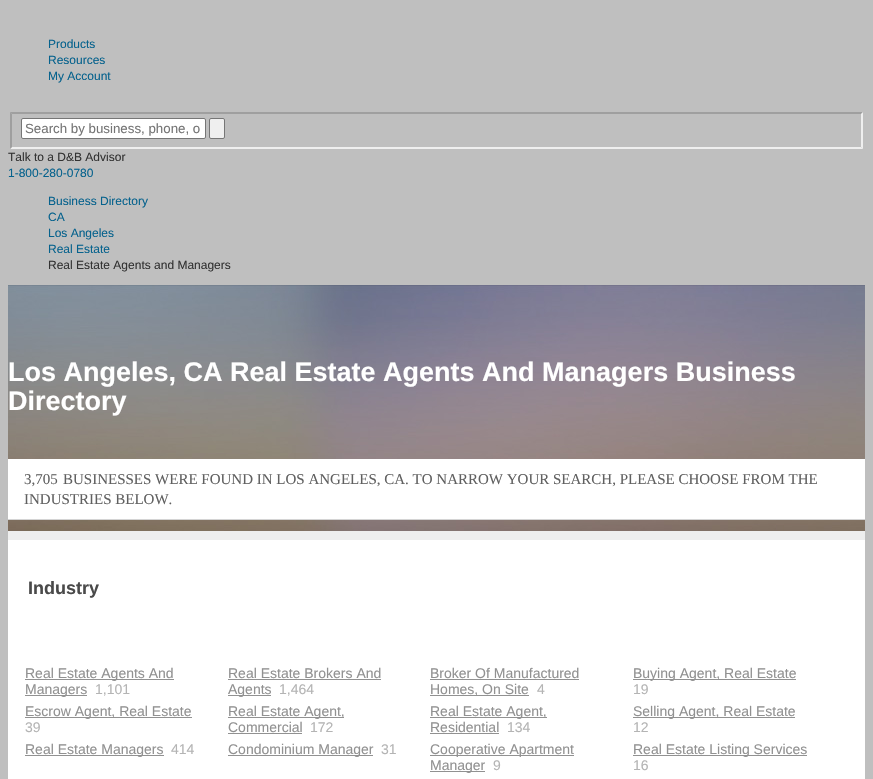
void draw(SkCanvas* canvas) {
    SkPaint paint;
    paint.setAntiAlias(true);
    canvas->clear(0xFFBFBFBF);
    SkFont font1(fontMgr->matchFamilyStyle("Liberation Sans", SkFontStyle::Normal()), 12);
    font1.setSubpixel(true);
    paint.setColor(0xFF06628D);
    canvas->drawString("Products", 48, 48, font1, paint);
    canvas->drawString("Resources", 48, 64, font1, paint);
    canvas->drawString("My Account", 48, 80, font1, paint);
    paint.setColor(0xFF9F9F9F);
    canvas->drawPath(SkPathBuilder().moveTo(10, 112).lineTo(863, 112).lineTo(861, 114).lineTo(12, 114).close().detach(), paint);
    paint.setColor(0xFFEFEFEF);
    canvas->drawPath(SkPathBuilder().moveTo(863, 112).lineTo(863, 149).lineTo(861, 147).lineTo(861, 114).close().detach(), paint);
    canvas->drawPath(SkPathBuilder().moveTo(863, 149).lineTo(10, 149).lineTo(12, 147).lineTo(861, 147).close().detach(), paint);
    paint.setColor(0xFF9F9F9F);
    canvas->drawPath(SkPathBuilder().moveTo(10, 149).lineTo(10, 112).lineTo(12, 114).lineTo(12, 147).close().detach(), paint);
    paint.setColor(0xFFFFFFFF);
    canvas->drawRoundRect(SkRect::MakeXYWH(21.5f, 118.5f, 184, 20), 1.5f, 1.5f, paint);
    paint.setStyle(SkPaint::kStroke_Style);
    paint.setStrokeWidth(1);
    paint.setColor(0xFF767676);
    canvas->drawRoundRect(SkRect::MakeXYWH(21.5f, 118.5f, 184, 20), 1.5f, 1.5f, paint);
    SkFont font2(fontMgr->matchFamilyStyle("Liberation Sans", SkFontStyle::Normal()), 13.3f);
    font2.setSubpixel(true);
    paint.setStyle(SkPaint::kFill_Style);
    paint.setColor(0xFF757575);
    canvas->drawString("Search by business, phone, o", 25, 133, font2, paint);
    paint.setColor(0xFFEFEFEF);
    canvas->drawRoundRect(SkRect::MakeXYWH(209.5f, 118.5f, 15, 20), 1.5f, 1.5f, paint);
    paint.setStyle(SkPaint::kStroke_Style);
    paint.setColor(0xFF767676);
    canvas->drawRoundRect(SkRect::MakeXYWH(209.5f, 118.5f, 15, 20), 1.5f, 1.5f, paint);
    paint.setStyle(SkPaint::kFill_Style);
    paint.setColor(0xFF333333);
    canvas->drawString("Talk to a D&B Advisor", 8, 161, font1, paint);
    paint.setColor(0xFF06628D);
    canvas->drawString("1-800-280-0780", 8, 177, font1, paint);
    canvas->drawString("Business Directory", 48, 205, font1, paint);
    canvas->drawString("CA", 48, 221, font1, paint);
    canvas->drawString("Los Angeles", 48, 237, font1, paint);
    canvas->drawString("Real Estate", 48, 253, font1, paint);
    paint.setColor(0xFF333333);
    canvas->drawString("Real Estate Agents and Managers", 48, 269, font1, paint);
    paint.setColor(0xFFEEEEEE);
    canvas->drawRect(SkRect::MakeXYWH(8, 531, 857, 9), paint);
    canvas->drawImageRect(SkImages::DeferredFromEncodedData(SkData::MakeFromFileName("img1.png")), SkRect::MakeXYWH(8, 285, 857, 246), SkSamplingOptions());
    SkFont font3(fontMgr->matchFamilyStyle("Liberation Sans", SkFontStyle::Bold()), 27);
    font3.setSubpixel(true);
    paint.setColor(0xFFFFFFFF);
    canvas->drawString("Los Angeles, CA Real Estate Agents And Managers Business", 8, 381, font3, paint);
    canvas->drawString("Directory", 8, 410, font3, paint);
    canvas->drawRect(SkRect::MakeXYWH(8, 459, 857, 60), paint);
    paint.setColor(0xFFD4D4D4);
    canvas->drawRect(SkRect::MakeXYWH(8, 519, 857, 1), paint);
    SkFont font4(fontMgr->matchFamilyStyle("Liberation Serif", SkFontStyle::Normal()), 15);
    font4.setSubpixel(true);
    paint.setColor(0xFF606060);
    canvas->drawString("3,705", 24, 484, font4, paint);
    canvas->drawString("BUSINESSES WERE FOUND IN LOS ANGELES, CA. TO NARROW YOUR SEARCH, PLEASE CHOOSE FROM THE", 63, 484, font4, paint);
    canvas->drawString("INDUSTRIES BELOW.", 24, 504, font4, paint);
    paint.setColor(0xFFFFFFFF);
    canvas->drawRect(SkRect::MakeXYWH(8, 540, 857, 239), paint);
    SkFont font5(fontMgr->matchFamilyStyle("Liberation Sans", SkFontStyle::Bold()), 18);
    font5.setSubpixel(true);
    paint.setColor(0xFF4A4A4A);
    canvas->drawString("Industry", 28, 594, font5, paint);
    paint.setColor(0xFF919191);
    canvas->drawRect(SkRect::MakeXYWH(25, 679, 149, 1), paint);
    SkFont font6(fontMgr->matchFamilyStyle("Liberation Sans", SkFontStyle::Normal()), 14);
    font6.setSubpixel(true);
    canvas->drawString("Real Estate Agents And", 25, 678, font6, paint);
    canvas->drawRect(SkRect::MakeXYWH(25, 695, 62, 1), paint);
    canvas->drawString("Managers", 25, 694, font6, paint);
    paint.setColor(0xFFB4B4B4);
    canvas->drawString("1,101", 95, 694, font6, paint);
    paint.setColor(0xFF919191);
    canvas->drawString("Real Estate Brokers And", 228, 678, font6, paint);
    canvas->drawRect(SkRect::MakeXYWH(228, 679, 153, 1), paint);
    canvas->drawRect(SkRect::MakeXYWH(228, 695, 43, 1), paint);
    canvas->drawString("Agents", 228, 694, font6, paint);
    paint.setColor(0xFFB4B4B4);
    canvas->drawString("1,464", 279, 694, font6, paint);
    paint.setColor(0xFF919191);
    canvas->drawString("Broker Of Manufactured", 430, 678, font6, paint);
    canvas->drawRect(SkRect::MakeXYWH(430, 679, 149, 1), paint);
    canvas->drawRect(SkRect::MakeXYWH(430, 695, 99, 1), paint);
    canvas->drawString("Homes, On Site", 430, 694, font6, paint);
    paint.setColor(0xFFB4B4B4);
    canvas->drawString("4", 537, 694, font6, paint);
    paint.setColor(0xFF919191);
    canvas->drawRect(SkRect::MakeXYWH(633, 679, 163, 1), paint);
    canvas->drawString("Buying Agent, Real Estate", 633, 678, font6, paint);
    paint.setColor(0xFFB4B4B4);
    canvas->drawString("19", 633, 694, font6, paint);
    paint.setColor(0xFF919191);
    canvas->drawRect(SkRect::MakeXYWH(25, 717, 167, 1), paint);
    canvas->drawString("Escrow Agent, Real Estate", 25, 716, font6, paint);
    paint.setColor(0xFFB4B4B4);
    canvas->drawString("39", 25, 732, font6, paint);
    paint.setColor(0xFF919191);
    canvas->drawRect(SkRect::MakeXYWH(228, 717, 116, 1), paint);
    canvas->drawString("Real Estate Agent,", 228, 716, font6, paint);
    canvas->drawString("Commercial", 228, 732, font6, paint);
    canvas->drawRect(SkRect::MakeXYWH(228, 733, 74, 1), paint);
    paint.setColor(0xFFB4B4B4);
    canvas->drawString("172", 310, 732, font6, paint);
    paint.setColor(0xFF919191);
    canvas->drawRect(SkRect::MakeXYWH(430, 717, 117, 1), paint);
    canvas->drawString("Real Estate Agent,", 430, 716, font6, paint);
    canvas->drawString("Residential", 430, 732, font6, paint);
    canvas->drawRect(SkRect::MakeXYWH(430, 733, 69, 1), paint);
    paint.setColor(0xFFB4B4B4);
    canvas->drawString("134", 507, 732, font6, paint);
    paint.setColor(0xFF919191);
    canvas->drawRect(SkRect::MakeXYWH(633, 717, 162, 1), paint);
    canvas->drawString("Selling Agent, Real Estate", 633, 716, font6, paint);
    paint.setColor(0xFFB4B4B4);
    canvas->drawString("12", 633, 732, font6, paint);
    paint.setColor(0xFF919191);
    canvas->drawRect(SkRect::MakeXYWH(25, 755, 139, 1), paint);
    canvas->drawString("Real Estate Managers", 25, 754, font6, paint);
    paint.setColor(0xFFB4B4B4);
    canvas->drawString("414", 171, 754, font6, paint);
    paint.setColor(0xFF919191);
    canvas->drawRect(SkRect::MakeXYWH(228, 755, 145, 1), paint);
    canvas->drawString("Condominium Manager", 228, 754, font6, paint);
    paint.setColor(0xFFB4B4B4);
    canvas->drawString("31", 381, 754, font6, paint);
    paint.setColor(0xFF919191);
    canvas->drawRect(SkRect::MakeXYWH(430, 755, 144, 1), paint);
    canvas->drawString("Cooperative Apartment", 430, 754, font6, paint);
    canvas->drawRect(SkRect::MakeXYWH(430, 771, 55, 1), paint);
    canvas->drawString("Manager", 430, 770, font6, paint);
    paint.setColor(0xFFB4B4B4);
    canvas->drawString("9", 493, 770, font6, paint);
    paint.setColor(0xFF919191);
    canvas->drawRect(SkRect::MakeXYWH(633, 755, 174, 1), paint);
    canvas->drawString("Real Estate Listing Services", 633, 754, font6, paint);
    paint.setColor(0xFFB4B4B4);
    canvas->drawString("16", 633, 770, font6, paint);
}
